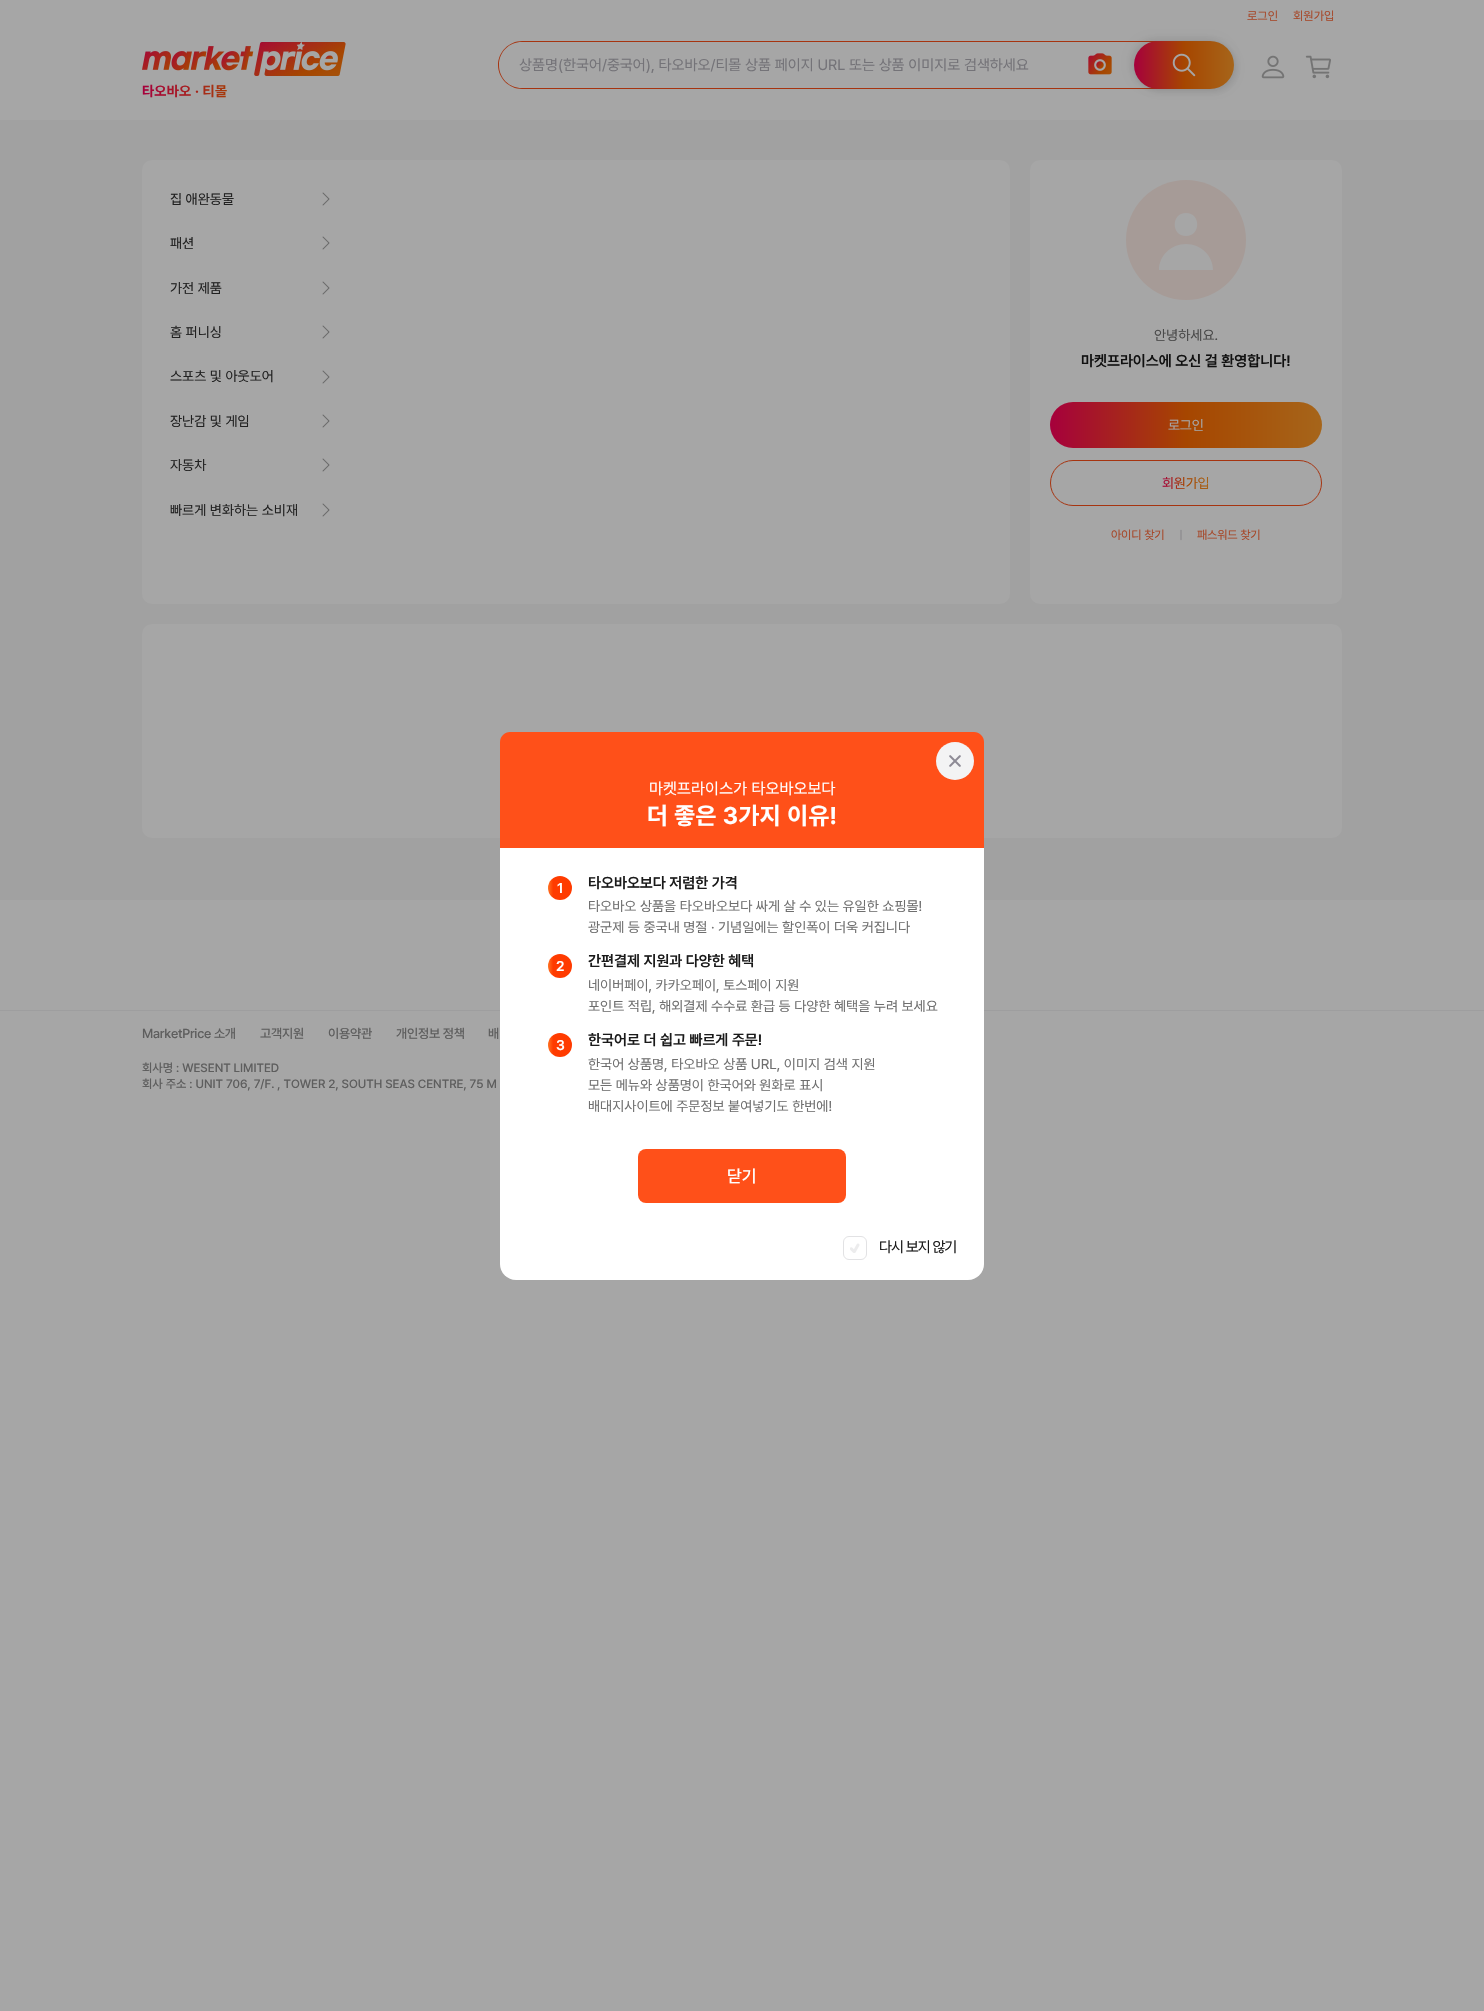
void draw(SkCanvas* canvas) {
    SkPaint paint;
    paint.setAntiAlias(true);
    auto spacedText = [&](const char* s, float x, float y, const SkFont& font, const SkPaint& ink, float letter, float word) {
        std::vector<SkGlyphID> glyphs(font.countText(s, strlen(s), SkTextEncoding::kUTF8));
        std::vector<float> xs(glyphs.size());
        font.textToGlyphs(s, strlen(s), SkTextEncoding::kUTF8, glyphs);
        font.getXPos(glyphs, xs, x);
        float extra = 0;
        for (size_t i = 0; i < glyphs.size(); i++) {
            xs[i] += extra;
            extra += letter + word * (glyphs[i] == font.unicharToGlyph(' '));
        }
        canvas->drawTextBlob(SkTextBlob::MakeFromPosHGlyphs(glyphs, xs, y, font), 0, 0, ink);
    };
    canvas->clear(0xFFA6A6A6);
    SkFont font1(fontMgr->matchFamilyStyle("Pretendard", SkFontStyle::Normal()), 12);
    font1.setSubpixel(true);
    paint.setColor(0xFFA6492B);
    canvas->drawString("로그인", 1247, 20, font1, paint);
    canvas->drawString("회원가입", 1293, 20, font1, paint);
    paint.setColor(0xFFA63410);
    canvas->drawPath(SkPathBuilder(SkPathFillType::kEvenOdd).moveTo(522, 41).lineTo(1190, 41).cubicTo(1203, 41, 1214, 52, 1214, 65).cubicTo(1214, 78, 1203, 89, 1190, 89).lineTo(522, 89).cubicTo(509, 89, 498, 78, 498, 65).cubicTo(498, 52, 509, 41, 522, 41).close().moveTo(522, 42).lineTo(1190, 42).cubicTo(1203, 42, 1214, 52, 1214, 65).cubicTo(1214, 78, 1203, 88, 1190, 88).lineTo(522, 88).cubicTo(509, 88, 499, 78, 499, 65).cubicTo(499, 52, 509, 42, 522, 42).close().detach(), paint);
    SkFont font2(fontMgr->matchFamilyStyle("Pretendard", SkFontStyle::Normal()), 15);
    font2.setSubpixel(true);
    paint.setColor(0xFF747378);
    canvas->drawString("상품명(한국어/중국어), 타오바오/티몰 상품 페이지 URL 또는 상품 이미지로 검색하세요", 519, 70, font2, paint);
    canvas->drawImageRect(SkImages::DeferredFromEncodedData(SkData::MakeFromFileName("img1.png")), SkRect::MakeXYWH(1088, 53, 24, 22), SkSamplingOptions());
    paint.setColor(0x17000000);
    paint.setMaskFilter(SkMaskFilter::MakeBlur(kNormal_SkBlurStyle, 3));
    canvas->drawRoundRect(SkRect::MakeXYWH(1137, 44, 100, 48), 24, 24, paint);
    paint.setMaskFilter(nullptr);
    paint.setMaskFilter(SkMaskFilter::MakeBlur(kNormal_SkBlurStyle, 4));
    canvas->drawRoundRect(SkRect::MakeXYWH(1131, 39, 100, 48), 24, 24, paint);
    paint.setMaskFilter(nullptr);
    {
        const SkColor colors[] = {0xFFA6003C, 0xFFA64600, 0xFFA6651A};
        const float stops[] = {0, 0.5f, 1};
        const SkPoint ends[] = {{1134, 65}, {1234, 65}};
        paint.setShader(SkGradientShader::MakeLinear(ends, colors, stops, 3, SkTileMode::kClamp));
        paint.setAlpha(255);
    }
    canvas->drawRoundRect(SkRect::MakeXYWH(1134, 41, 100, 48), 24, 24, paint);
    canvas->drawImageRect(SkImages::DeferredFromEncodedData(SkData::MakeFromFileName("img2.png")), SkRect::MakeXYWH(1172, 53, 24, 24), SkSamplingOptions());
    canvas->drawImageRect(SkImages::DeferredFromEncodedData(SkData::MakeFromFileName("img3.png")), SkRect::MakeXYWH(1261, 55, 24, 24), SkSamplingOptions());
    canvas->drawImageRect(SkImages::DeferredFromEncodedData(SkData::MakeFromFileName("img4.png")), SkRect::MakeXYWH(1305, 55, 26, 24), SkSamplingOptions());
    canvas->drawImageRect(SkImages::DeferredFromEncodedData(SkData::MakeFromFileName("img5.png")), SkRect::MakeXYWH(142, 42, 204, 34), SkSamplingOptions());
    SkFont font3(fontMgr->matchFamilyStyle("Pretendard", SkFontStyle::Bold()), 14);
    font3.setSubpixel(true);
    {
        const SkColor colors[] = {0xFFA6003C, 0xFFA64600, 0xFFA6651A};
        const float stops[] = {0, 0.5f, 1};
        const SkPoint ends[] = {{142, 91}, {346, 91}};
        paint.setShader(SkGradientShader::MakeLinear(ends, colors, stops, 3, SkTileMode::kClamp));
        paint.setAlpha(255);
    }
    spacedText("타오바오 · 티몰", 142, 96, font3, paint, 0.25f, 0);
    paint.setShader(nullptr);
    paint.setColor(0xFFA1A1A1);
    canvas->drawRect(SkRect::MakeXYWH(0, 120, 1484, 780), paint);
    paint.setColor(0xFFA6A6A6);
    canvas->drawRoundRect(SkRect::MakeXYWH(142, 160, 868, 444), 10, 10, paint);
    SkFont font4(fontMgr->matchFamilyStyle("Pretendard", SkFontStyle::Normal()), 14);
    font4.setSubpixel(true);
    paint.setColor(0xFF212121);
    canvas->drawString("집 애완동물", 170, 204, font4, paint);
    canvas->drawImageRect(SkImages::DeferredFromEncodedData(SkData::MakeFromFileName("img6.png")), SkRect::MakeXYWH(322, 192, 8, 14), SkSamplingOptions());
    canvas->drawString("패션", 170, 248, font4, paint);
    canvas->drawImageRect(SkImages::DeferredFromEncodedData(SkData::MakeFromFileName("img6.png")), SkRect::MakeXYWH(322, 236, 8, 14), SkSamplingOptions());
    canvas->drawString("가전 제품", 170, 293, font4, paint);
    canvas->drawImageRect(SkImages::DeferredFromEncodedData(SkData::MakeFromFileName("img6.png")), SkRect::MakeXYWH(322, 281, 8, 14), SkSamplingOptions());
    canvas->drawString("홈 퍼니싱", 170, 337, font4, paint);
    canvas->drawImageRect(SkImages::DeferredFromEncodedData(SkData::MakeFromFileName("img6.png")), SkRect::MakeXYWH(322, 325, 8, 14), SkSamplingOptions());
    canvas->drawString("스포츠 및 아웃도어", 170, 381, font4, paint);
    canvas->drawImageRect(SkImages::DeferredFromEncodedData(SkData::MakeFromFileName("img6.png")), SkRect::MakeXYWH(322, 370, 8, 14), SkSamplingOptions());
    canvas->drawString("장난감 및 게임", 170, 426, font4, paint);
    canvas->drawImageRect(SkImages::DeferredFromEncodedData(SkData::MakeFromFileName("img6.png")), SkRect::MakeXYWH(322, 414, 8, 14), SkSamplingOptions());
    canvas->drawString("자동차", 170, 470, font4, paint);
    canvas->drawImageRect(SkImages::DeferredFromEncodedData(SkData::MakeFromFileName("img6.png")), SkRect::MakeXYWH(322, 458, 8, 14), SkSamplingOptions());
    canvas->drawString("빠르게 변화하는 소비재", 170, 515, font4, paint);
    canvas->drawImageRect(SkImages::DeferredFromEncodedData(SkData::MakeFromFileName("img6.png")), SkRect::MakeXYWH(322, 503, 8, 14), SkSamplingOptions());
    paint.setColor(0xFFA6A6A6);
    canvas->drawRoundRect(SkRect::MakeXYWH(1030, 160, 312, 444), 10, 10, paint);
    paint.setColor(0xFFA69B97);
    canvas->drawCircle(1186, 240, 60, paint);
    paint.setColor(0xFFA6A6A6);
    canvas->drawPath(SkPathBuilder(SkPathFillType::kEvenOdd).moveTo(1186, 236).cubicTo(1201, 236, 1201, 213, 1186, 213).cubicTo(1171, 213, 1171, 236, 1186, 236).close().moveTo(1159, 270).cubicTo(1159, 256, 1171, 244, 1186, 244).cubicTo(1201, 244, 1213, 256, 1213, 270).close().detach(), paint);
    paint.setColor(0xFF484848);
    canvas->drawString("안녕하세요.", 1154, 340, font4, paint);
    SkFont font5(fontMgr->matchFamilyStyle("Pretendard", SkFontStyle(600, SkFontStyle::kNormal_Width, SkFontStyle::kUpright_Slant)), 15);
    font5.setSubpixel(true);
    paint.setColor(0xFF111111);
    canvas->drawString("마켓프라이스에 오신 걸 환영합니다!", 1081, 366, font5, paint);
    {
        const SkColor colors[] = {0xFFA6003C, 0xFFA64600, 0xFFA6651A};
        const float stops[] = {0, 0.5f, 1};
        const SkPoint ends[] = {{1050, 425}, {1322, 425}};
        paint.setShader(SkGradientShader::MakeLinear(ends, colors, stops, 3, SkTileMode::kClamp));
        paint.setAlpha(255);
    }
    canvas->drawRoundRect(SkRect::MakeXYWH(1050, 402, 272, 46), 23, 23, paint);
    paint.setShader(nullptr);
    paint.setColor(0xFFA6A6A6);
    spacedText("로그인", 1168, 430, font4, paint, -0.25f, 0);
    paint.setStyle(SkPaint::kStroke_Style);
    paint.setStrokeWidth(1);
    paint.setColor(0xFFA63410);
    canvas->drawRoundRect(SkRect::MakeXYWH(1050.5f, 460.5f, 271, 45), 22.5f, 22.5f, paint);
    paint.setStyle(SkPaint::kFill_Style);
    {
        const SkColor colors[] = {0xFFA6003C, 0xFFA64600, 0xFFA6651A};
        const float stops[] = {0, 0.5f, 1};
        const SkPoint ends[] = {{1162, 483}, {1210, 483}};
        paint.setShader(SkGradientShader::MakeLinear(ends, colors, stops, 3, SkTileMode::kClamp));
        paint.setAlpha(255);
    }
    spacedText("회원가입", 1162, 488, font4, paint, -0.25f, 0);
    paint.setShader(nullptr);
    paint.setColor(0xFFA6492B);
    spacedText("아이디 찾기", 1111, 539, font1, paint, -0.25f, 0);
    paint.setStyle(SkPaint::kStroke_Style);
    paint.setStrokeWidth(1.3f);
    paint.setStrokeCap(SkPaint::kRound_Cap);
    paint.setStrokeJoin(SkPaint::kRound_Join);
    paint.setColor(0xFF8D8C8F);
    canvas->drawPath(SkPathBuilder().moveTo(1181, 530.5f).lineTo(1181, 539.5f).detach(), paint);
    paint.setStyle(SkPaint::kFill_Style);
    paint.setColor(0xFFA6492B);
    spacedText("패스워드 찾기", 1197, 539, font1, paint, -0.25f, 0);
    paint.setColor(0xFFA6A6A6);
    canvas->drawRoundRect(SkRect::MakeXYWH(142, 624, 1200, 214), 10, 10, paint);
    paint.setColor(0xFF9E9E9F);
    canvas->drawRect(SkRect::MakeXYWH(0, 1010, 1484, 1), paint);
    SkFont font6(fontMgr->matchFamilyStyle("Pretendard", SkFontStyle(500, SkFontStyle::kNormal_Width, SkFontStyle::kUpright_Slant)), 13);
    font6.setSubpixel(true);
    paint.setColor(0xFF5E5E5E);
    spacedText("MarketPrice 소개", 142, 1038, font6, paint, -0.25f, 0);
    spacedText("고객지원", 260, 1038, font6, paint, -0.25f, 0);
    spacedText("이용약관", 328, 1038, font6, paint, -0.25f, 0);
    spacedText("개인정보 정책", 396, 1038, font6, paint, -0.25f, 0);
    spacedText("배", 488, 1038, font6, paint, -0.25f, 0);
    SkFont font7(fontMgr->matchFamilyStyle("Pretendard", SkFontStyle(500, SkFontStyle::kNormal_Width, SkFontStyle::kUpright_Slant)), 12);
    font7.setSubpixel(true);
    canvas->drawString("회사명 : WESENT LIMITED", 142, 1072, font7, paint);
    canvas->drawString("회사 주소 : UNIT 706, 7/F. , TOWER 2, SOUTH SEAS CENTRE, 75 M", 142, 1088, font7, paint);
    paint.setColor(0xFFFFFFFF);
    canvas->drawRoundRect(SkRect::MakeXYWH(500, 732, 484, 548), 16, 16, paint);
    paint.setColor(0xFFFF5019);
    canvas->drawPath(SkPathBuilder().moveTo(510, 732).lineTo(974, 732).cubicTo(979.5f, 732, 984, 736.5f, 984, 742).lineTo(984, 848).lineTo(500, 848).lineTo(500, 742).cubicTo(500, 736.5f, 504.5f, 732, 510, 732).close().detach(), paint);
    paint.setColor(0xFFF3F3F4);
    canvas->drawCircle(955, 761, 19, paint);
    canvas->drawImageRect(SkImages::DeferredFromEncodedData(SkData::MakeFromFileName("img7.png")), SkRect::MakeXYWH(949, 755, 12, 12), SkSamplingOptions());
    SkFont font8(fontMgr->matchFamilyStyle("Pretendard", SkFontStyle::Normal()), 16);
    font8.setSubpixel(true);
    paint.setColor(0xFFFFFFFF);
    spacedText("마켓프라이스가 타오바오보다", 649, 794, font8, paint, 0.2f, 0);
    SkFont font9(fontMgr->matchFamilyStyle("Pretendard", SkFontStyle::Bold()), 24);
    font9.setSubpixel(true);
    spacedText("더 좋은 3가지 이유!", 647, 824, font9, paint, 0.5f, 0);
    {
        const SkColor colors[] = {0xFFFFAA46, 0xFFFF3B00};
        const float stops[] = {0, 0.35f};
        const SkPoint ends[] = {{543, 888}, {572, 888}};
        paint.setShader(SkGradientShader::MakeLinear(ends, colors, stops, 2, SkTileMode::kClamp));
        paint.setAlpha(255);
    }
    canvas->drawCircle(560, 888, 12, paint);
    SkFont font10(fontMgr->matchFamilyStyle("Pretendard", SkFontStyle(600, SkFontStyle::kNormal_Width, SkFontStyle::kUpright_Slant)), 14);
    font10.setSubpixel(true);
    paint.setShader(nullptr);
    paint.setColor(0xFFFFFFFF);
    canvas->drawString("1", 557, 893, font10, paint);
    paint.setColor(0xFF1A1A1A);
    canvas->drawString("타오바오보다 저렴한 가격", 588, 888, font5, paint);
    paint.setColor(0xFF6F6F6F);
    canvas->drawString("타오바오 상품을 타오바오보다 싸게 살 수 있는 유일한 쇼핑몰!", 588, 911, font4, paint);
    canvas->drawString("광군제 등 중국내 명절 · 기념일에는 할인폭이 더욱 커집니다", 588, 932, font4, paint);
    {
        const SkColor colors[] = {0xFFFFAA46, 0xFFFF3B00};
        const float stops[] = {0, 0.35f};
        const SkPoint ends[] = {{543, 966}, {572, 966}};
        paint.setShader(SkGradientShader::MakeLinear(ends, colors, stops, 2, SkTileMode::kClamp));
        paint.setAlpha(255);
    }
    canvas->drawCircle(560, 966, 12, paint);
    paint.setShader(nullptr);
    paint.setColor(0xFFFFFFFF);
    canvas->drawString("2", 556, 971, font10, paint);
    paint.setColor(0xFF1A1A1A);
    canvas->drawString("간편결제 지원과 다양한 혜택", 588, 966, font5, paint);
    paint.setColor(0xFF6F6F6F);
    canvas->drawString("네이버페이, 카카오페이, 토스페이 지원", 588, 990, font4, paint);
    canvas->drawString("포인트 적립, 해외결제 수수료 환급 등 다양한 혜택을 누려 보세요", 588, 1011, font4, paint);
    {
        const SkColor colors[] = {0xFFFFAA46, 0xFFFF3B00};
        const float stops[] = {0, 0.35f};
        const SkPoint ends[] = {{543, 1045}, {572, 1045}};
        paint.setShader(SkGradientShader::MakeLinear(ends, colors, stops, 2, SkTileMode::kClamp));
        paint.setAlpha(255);
    }
    canvas->drawCircle(560, 1045, 12, paint);
    paint.setShader(nullptr);
    paint.setColor(0xFFFFFFFF);
    canvas->drawString("3", 556, 1050, font10, paint);
    paint.setColor(0xFF1A1A1A);
    canvas->drawString("한국어로 더 쉽고 빠르게 주문!", 588, 1045, font5, paint);
    paint.setColor(0xFF6F6F6F);
    canvas->drawString("한국어 상품명, 타오바오 상품 URL, 이미지 검색 지원", 588, 1069, font4, paint);
    canvas->drawString("모든 메뉴와 상품명이 한국어와 원화로 표시", 588, 1090, font4, paint);
    canvas->drawString("배대지사이트에 주문정보 붙여넣기도 한번에!", 588, 1111, font4, paint);
    paint.setColor(0xFFFF5019);
    canvas->drawRoundRect(SkRect::MakeXYWH(638, 1149, 208, 54), 8, 8, paint);
    SkFont font11(fontMgr->matchFamilyStyle("Pretendard", SkFontStyle(500, SkFontStyle::kNormal_Width, SkFontStyle::kUpright_Slant)), 17);
    font11.setSubpixel(true);
    paint.setColor(0xFFFFFFFF);
    canvas->drawString("닫기", 727, 1182, font11, paint);
    paint.setStyle(SkPaint::kStroke_Style);
    paint.setStrokeWidth(1);
    paint.setStrokeCap(SkPaint::kButt_Cap);
    paint.setStrokeJoin(SkPaint::kMiter_Join);
    paint.setColor(0xFFE2E2E4);
    canvas->drawRoundRect(SkRect::MakeXYWH(843.5f, 1236.5f, 23, 23), 5.5f, 5.5f, paint);
    canvas->drawImageRect(SkImages::DeferredFromEncodedData(SkData::MakeFromFileName("img8.png")), SkRect::MakeXYWH(850, 1243, 10, 10), SkSamplingOptions());
    paint.setStyle(SkPaint::kFill_Style);
    paint.setColor(0xFF1A1A1A);
    spacedText("다시 보지 않기", 879, 1252, font2, paint, -1, 0);
}
